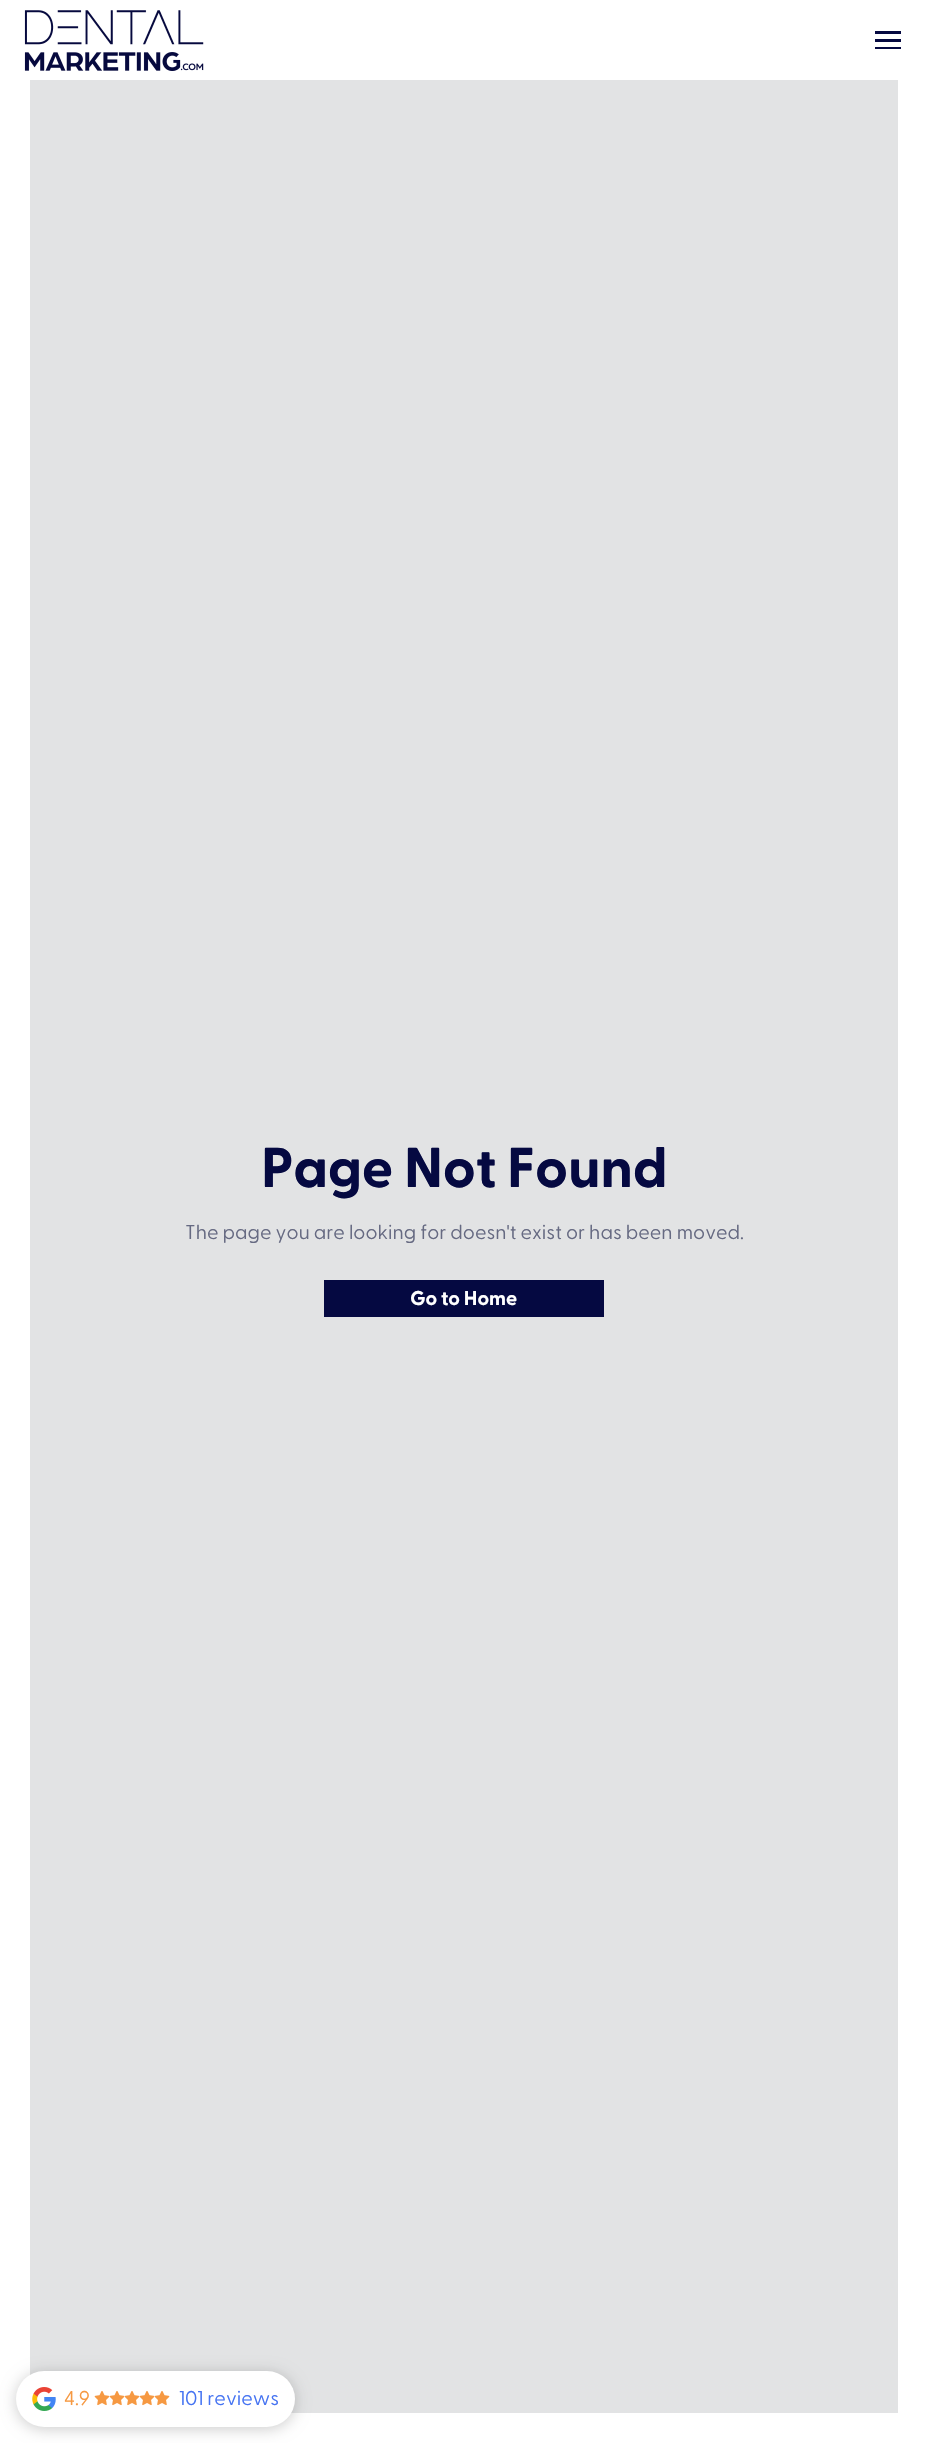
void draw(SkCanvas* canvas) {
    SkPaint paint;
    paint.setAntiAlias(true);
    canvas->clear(0xFFFFFFFF);
    paint.setColor(0xFFE2E3E4);
    canvas->drawRect(SkRect::MakeXYWH(30, 80, 868, 2333), paint);
    SkFont font1(fontMgr->matchFamilyStyle("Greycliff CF", SkFontStyle::Bold()), 56);
    font1.setSubpixel(true);
    paint.setColor(0xFF050941);
    canvas->drawString("Page Not Found", 261, 1187, font1, paint);
    SkFont font2(fontMgr->matchFamilyStyle("Greycliff CF", SkFontStyle::Normal()), 20);
    font2.setSubpixel(true);
    paint.setColor(0xFF666A82);
    canvas->drawString("The page you are looking for doesn't exist or has been moved.", 185, 1239, font2, paint);
    paint.setColor(0xFF050941);
    canvas->drawRect(SkRect::MakeXYWH(324, 1280, 280, 37), paint);
    SkFont font3(fontMgr->matchFamilyStyle("Greycliff CF", SkFontStyle::Bold()), 20);
    font3.setSubpixel(true);
    paint.setColor(0xFFFFFFFF);
    canvas->drawString("Go to Home", 410, 1305, font3, paint);
    canvas->drawImageRect(SkImages::DeferredFromEncodedData(SkData::MakeFromFileName("img1.png")), SkRect::MakeXYWH(24, 10, 180, 61), SkSamplingOptions());
    paint.setColor(0xFF050941);
    canvas->drawRect(SkRect::MakeXYWH(875, 31, 26, 3), paint);
    canvas->drawRect(SkRect::MakeXYWH(875, 39, 26, 3), paint);
    canvas->drawRect(SkRect::MakeXYWH(875, 47, 26, 2), paint);
    paint.setColor(0x33000000);
    paint.setMaskFilter(SkMaskFilter::MakeBlur(kNormal_SkBlurStyle, 7.5f));
    canvas->drawRoundRect(SkRect::MakeXYWH(16, 2373, 279, 56), 28, 28, paint);
    paint.setMaskFilter(nullptr);
    paint.setColor(0xFFFFFFFF);
    canvas->drawRoundRect(SkRect::MakeXYWH(16, 2371, 279, 56), 28, 28, paint);
    canvas->drawImageRect(SkImages::DeferredFromEncodedData(SkData::MakeFromFileName("img2.png")), SkRect::MakeXYWH(32, 2387, 24, 24), SkSamplingOptions());
    paint.setColor(0xFFF69942);
    canvas->drawString("4.9", 64, 2405, font2, paint);
    canvas->drawImageRect(SkImages::DeferredFromEncodedData(SkData::MakeFromFileName("img3.png")), SkRect::MakeXYWH(94, 2391, 16, 15), SkSamplingOptions());
    canvas->drawImageRect(SkImages::DeferredFromEncodedData(SkData::MakeFromFileName("img4.png")), SkRect::MakeXYWH(109, 2391, 16, 15), SkSamplingOptions());
    canvas->drawImageRect(SkImages::DeferredFromEncodedData(SkData::MakeFromFileName("img4.png")), SkRect::MakeXYWH(124, 2391, 16, 15), SkSamplingOptions());
    canvas->drawImageRect(SkImages::DeferredFromEncodedData(SkData::MakeFromFileName("img4.png")), SkRect::MakeXYWH(139, 2391, 16, 15), SkSamplingOptions());
    canvas->drawImageRect(SkImages::DeferredFromEncodedData(SkData::MakeFromFileName("img4.png")), SkRect::MakeXYWH(154, 2391, 16, 15), SkSamplingOptions());
    paint.setColor(0xFF4674F2);
    canvas->drawString("101 reviews", 179, 2405, font2, paint);
}
